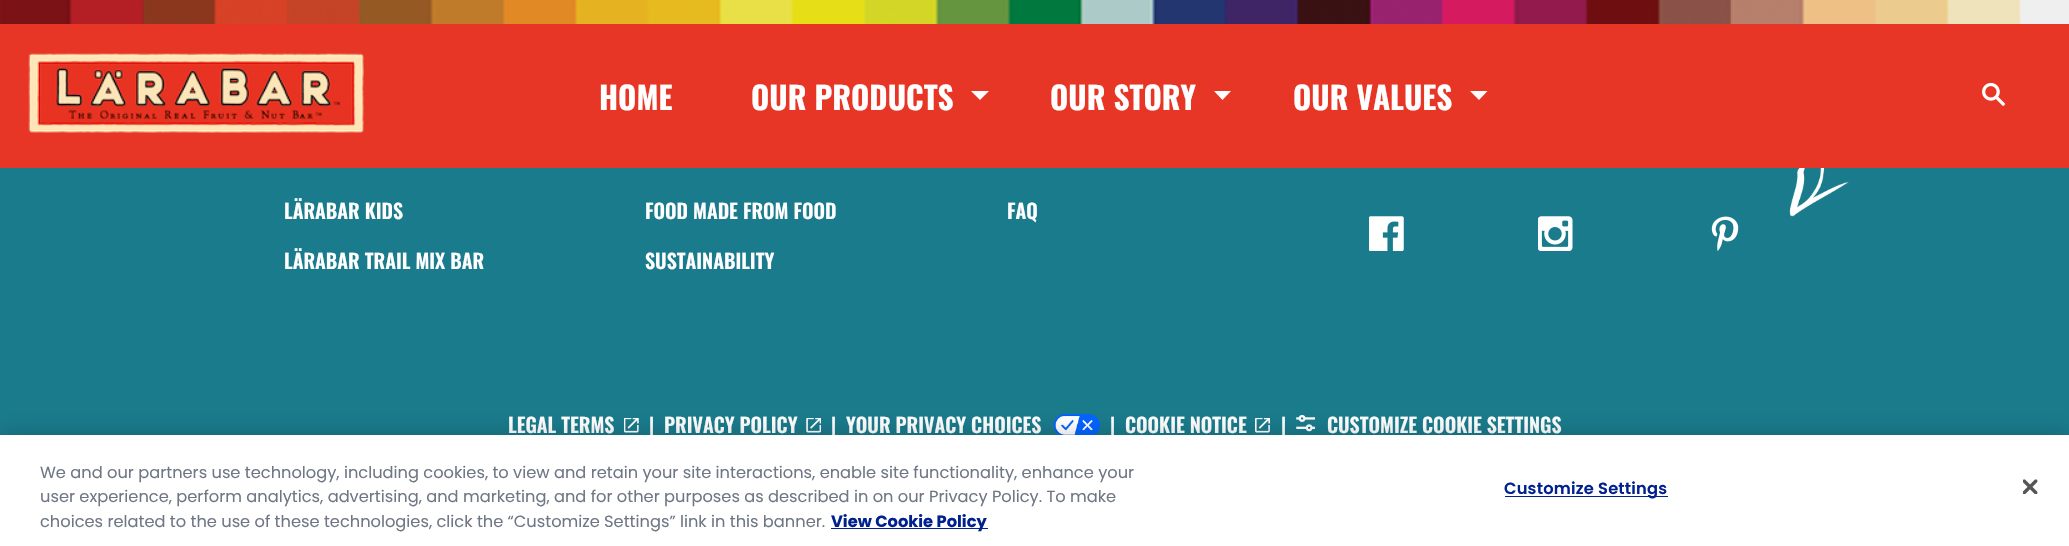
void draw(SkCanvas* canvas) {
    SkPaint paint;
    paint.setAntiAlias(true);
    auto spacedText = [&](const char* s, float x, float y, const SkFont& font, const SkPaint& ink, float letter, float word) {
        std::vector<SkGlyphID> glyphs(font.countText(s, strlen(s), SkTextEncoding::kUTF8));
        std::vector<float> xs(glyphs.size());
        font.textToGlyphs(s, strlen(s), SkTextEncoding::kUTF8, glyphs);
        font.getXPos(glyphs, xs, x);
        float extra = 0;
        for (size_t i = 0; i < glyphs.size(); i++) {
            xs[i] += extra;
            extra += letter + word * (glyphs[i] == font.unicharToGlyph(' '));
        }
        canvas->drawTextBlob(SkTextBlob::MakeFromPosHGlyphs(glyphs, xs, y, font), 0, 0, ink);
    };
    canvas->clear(0xFF1A7B8C);
    paint.setColor(0xFFE83626);
    canvas->drawRect(SkRect::MakeXYWH(0, 0, 2069, 168), paint);
    canvas->drawImageRect(SkImages::DeferredFromEncodedData(SkData::MakeFromFileName("img1.png")), SkRect::MakeXYWH(0, 0, 2069, 24), SkSamplingOptions());
    canvas->drawImageRect(SkImages::DeferredFromEncodedData(SkData::MakeFromFileName("img2.png")), SkRect::MakeXYWH(28, 53, 336, 80), SkSamplingOptions());
    SkFont font1(fontMgr->matchFamilyStyle("Oswald", SkFontStyle::Bold()), 31.25f);
    font1.setSubpixel(true);
    paint.setColor(0xFFFFFFFF);
    canvas->drawString("HOME", 599, 110, font1, paint);
    canvas->drawString("OUR PRODUCTS", 751, 110, font1, paint);
    canvas->drawPath(SkPathBuilder().moveTo(971, 91).lineTo(989, 91).lineTo(980, 100).close().detach(), paint);
    canvas->drawString("OUR STORY", 1050, 110, font1, paint);
    canvas->drawPath(SkPathBuilder().moveTo(1214, 91).lineTo(1231, 91).lineTo(1222.5f, 100).close().detach(), paint);
    canvas->drawString("OUR VALUES", 1293, 110, font1, paint);
    canvas->drawPath(SkPathBuilder().moveTo(1470, 91).lineTo(1487.5f, 91).lineTo(1479, 100).close().detach(), paint);
    canvas->drawImageRect(SkImages::DeferredFromEncodedData(SkData::MakeFromFileName("img3.png")), SkRect::MakeXYWH(1982, 82, 23, 24), SkSamplingOptions());
    SkFont font2(fontMgr->matchFamilyStyle("Oswald", SkFontStyle(600, SkFontStyle::kNormal_Width, SkFontStyle::kUpright_Slant)), 20);
    font2.setSubpixel(true);
    canvas->drawString("LÄRABAR KIDS", 284, 219, font2, paint);
    canvas->drawString("LÄRABAR TRAIL MIX BAR", 284, 269, font2, paint);
    canvas->drawString("FOOD MADE FROM FOOD", 645, 219, font2, paint);
    canvas->drawString("SUSTAINABILITY", 645, 269, font2, paint);
    canvas->drawString("FAQ", 1007, 219, font2, paint);
    canvas->drawImageRect(SkImages::DeferredFromEncodedData(SkData::MakeFromFileName("img4.png")), SkRect::MakeXYWH(1789, 168, 60, 49), SkSamplingOptions());
    canvas->drawImageRect(SkImages::DeferredFromEncodedData(SkData::MakeFromFileName("img5.png")), SkRect::MakeXYWH(1369, 216, 35, 35), SkSamplingOptions());
    canvas->drawImageRect(SkImages::DeferredFromEncodedData(SkData::MakeFromFileName("img6.png")), SkRect::MakeXYWH(1538, 216, 35, 35), SkSamplingOptions());
    canvas->drawImageRect(SkImages::DeferredFromEncodedData(SkData::MakeFromFileName("img7.png")), SkRect::MakeXYWH(1711, 216, 28, 35), SkSamplingOptions());
    canvas->drawString("LEGAL TERMS", 508, 433, font2, paint);
    canvas->drawImageRect(SkImages::DeferredFromEncodedData(SkData::MakeFromFileName("img8.png")), SkRect::MakeXYWH(624, 418, 15, 15), SkSamplingOptions());
    canvas->drawString("|", 649, 433, font2, paint);
    canvas->drawString("PRIVACY POLICY", 664, 433, font2, paint);
    canvas->drawImageRect(SkImages::DeferredFromEncodedData(SkData::MakeFromFileName("img9.png")), SkRect::MakeXYWH(806, 418, 15, 15), SkSamplingOptions());
    canvas->drawString("|", 831, 433, font2, paint);
    canvas->drawString("YOUR PRIVACY CHOICES", 846, 433, font2, paint);
    canvas->drawImageRect(SkImages::DeferredFromEncodedData(SkData::MakeFromFileName("img10.png")), SkRect::MakeXYWH(1053, 414, 47, 21), SkSamplingOptions());
    canvas->drawString("|", 1110, 433, font2, paint);
    canvas->drawString("COOKIE NOTICE", 1125, 433, font2, paint);
    canvas->drawImageRect(SkImages::DeferredFromEncodedData(SkData::MakeFromFileName("img11.png")), SkRect::MakeXYWH(1255, 418, 15, 15), SkSamplingOptions());
    canvas->drawString("|", 1281, 433, font2, paint);
    canvas->drawImageRect(SkImages::DeferredFromEncodedData(SkData::MakeFromFileName("img12.png")), SkRect::MakeXYWH(1296, 414, 19, 18), SkSamplingOptions());
    canvas->drawString("CUSTOMIZE COOKIE SETTINGS", 1327, 433, font2, paint);
    paint.setColor(0x33000000);
    paint.setMaskFilter(SkMaskFilter::MakeBlur(kNormal_SkBlurStyle, 11));
    canvas->drawRect(SkRect::MakeXYWH(0, 435, 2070, 111), paint);
    paint.setMaskFilter(nullptr);
    paint.setColor(0xFFFFFFFF);
    canvas->drawRect(SkRect::MakeXYWH(0, 435, 2069, 111), paint);
    SkFont font3(fontMgr->matchFamilyStyle("Poppins", SkFontStyle::Normal()), 16.25f);
    font3.setSubpixel(true);
    paint.setColor(0xFF6F7785);
    canvas->drawString("We and our partners use technology, including cookies, to view and retain your site interactions, enable site functionality, enhance your", 40, 478, font3, paint);
    canvas->drawString("user experience, perform analytics, advertising, and marketing, and for other purposes as described in on our Privacy Policy. To make", 40, 502, font3, paint);
    canvas->drawString("choices related to the use of these technologies, click the “Customize Settings” link in this banner.", 40, 527, font3, paint);
    paint.setColor(0xFF00218E);
    canvas->drawRect(SkRect::MakeXYWH(831, 528, 157, 1), paint);
    SkFont font4(fontMgr->matchFamilyStyle("Poppins", SkFontStyle::Bold()), 16.25f);
    font4.setSubpixel(true);
    canvas->drawString("View Cookie Policy", 831, 527, font4, paint);
    canvas->drawRect(SkRect::MakeXYWH(1505, 496, 163, 1), paint);
    SkFont font5(fontMgr->matchFamilyStyle("Poppins", SkFontStyle(600, SkFontStyle::kNormal_Width, SkFontStyle::kUpright_Slant)), 16.25f);
    font5.setSubpixel(true);
    spacedText("Customize Settings", 1504, 494, font5, paint, 0.2f, 0);
    canvas->drawImageRect(SkImages::DeferredFromEncodedData(SkData::MakeFromFileName("img13.png")), SkRect::MakeXYWH(2023, 479, 15, 15), SkSamplingOptions());
}
